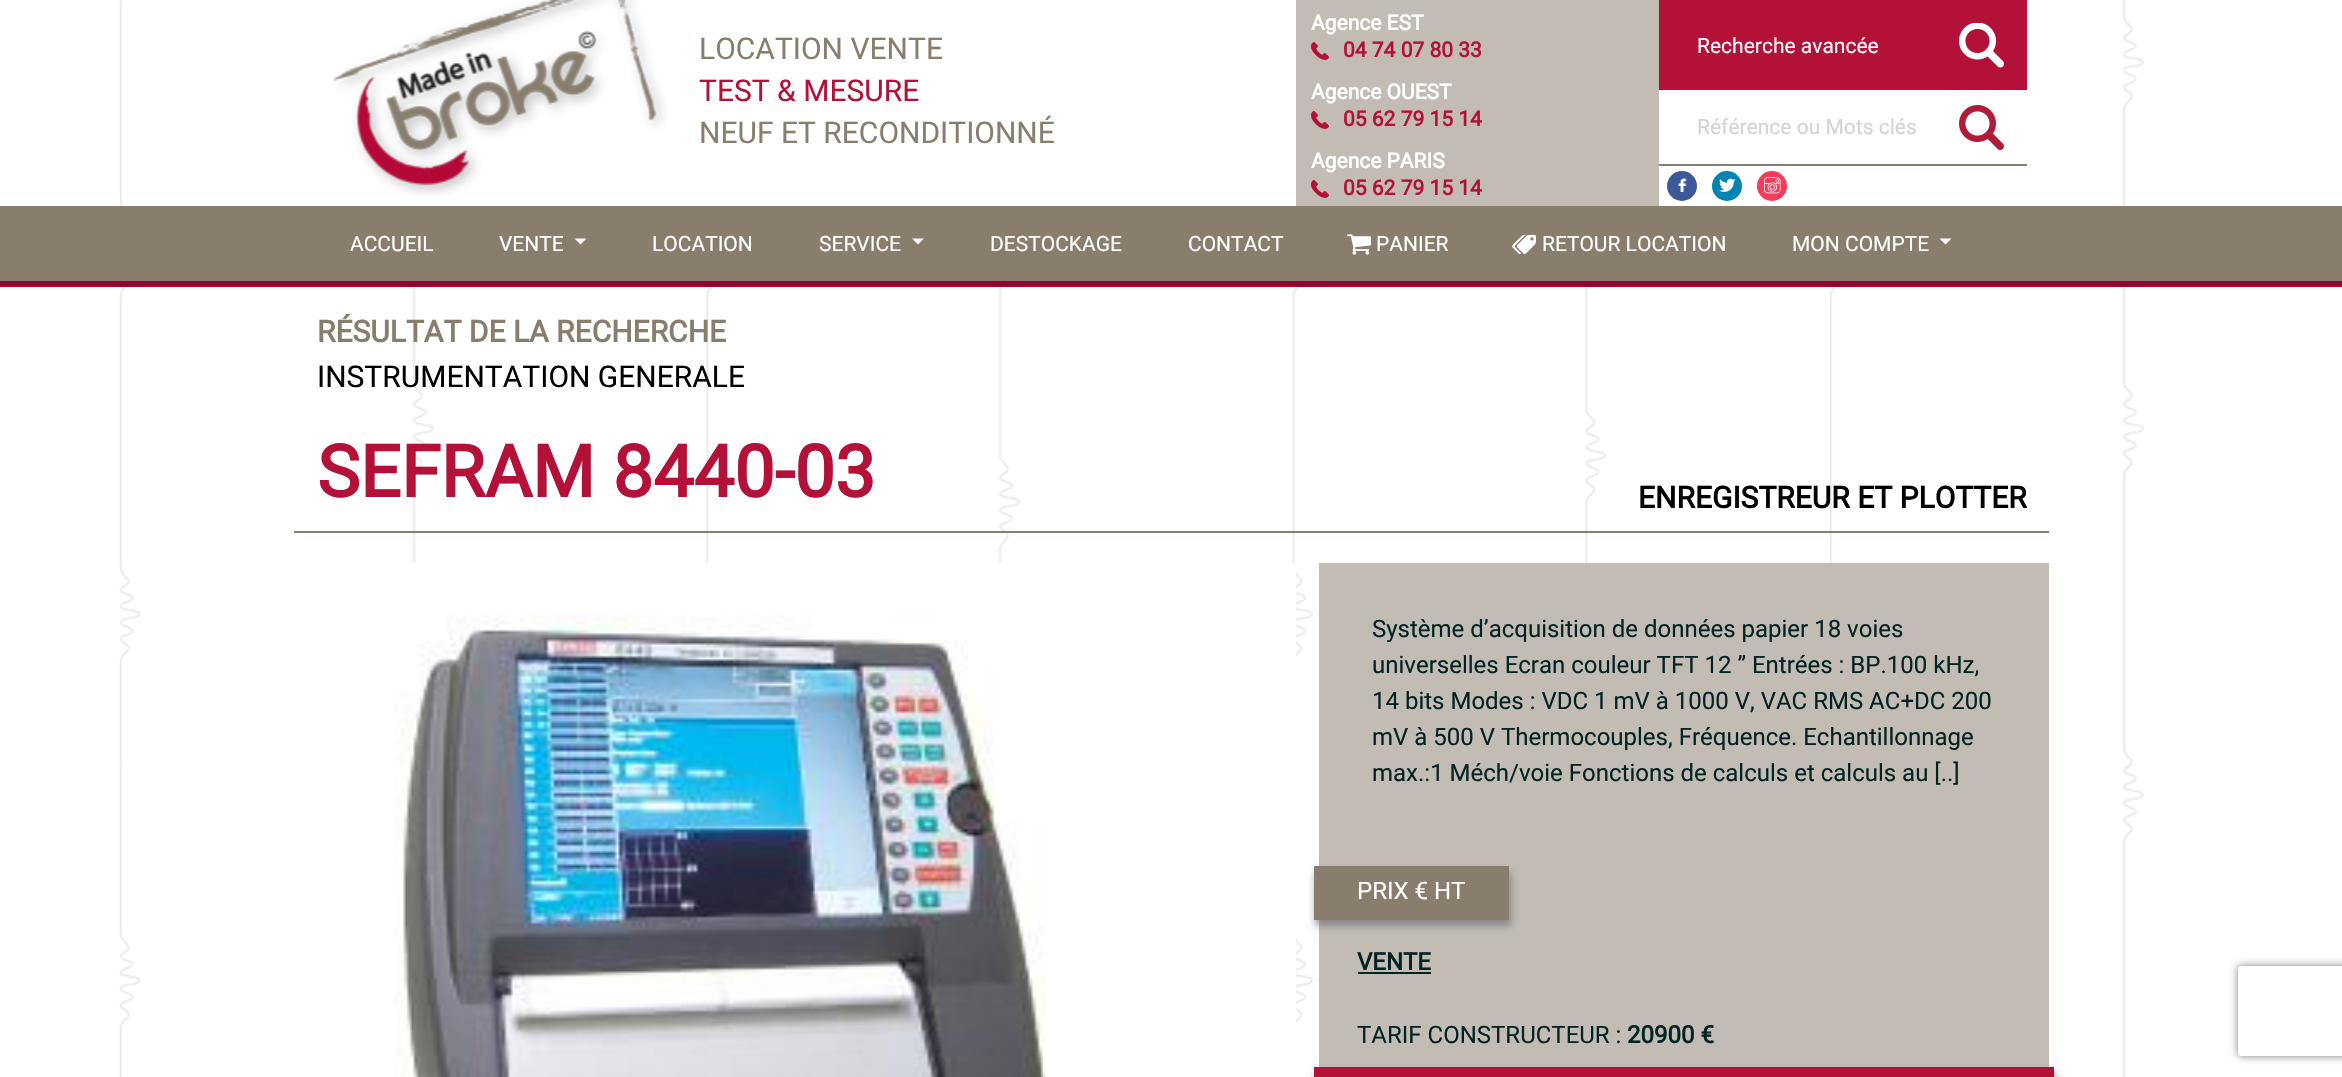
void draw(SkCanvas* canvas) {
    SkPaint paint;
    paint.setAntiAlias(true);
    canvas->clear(0xFFFFFFFF);
    canvas->drawImageRect(SkImages::DeferredFromEncodedData(SkData::MakeFromFileName("img1.png")), SkRect::MakeXYWH(119, 0, 2025, 1077), SkSamplingOptions());
    paint.setColor(0xFF897D6D);
    canvas->drawRect(SkRect::MakeXYWH(0, 206, 2342, 75), paint);
    paint.setColor(0xFF990033);
    canvas->drawRect(SkRect::MakeXYWH(0, 281, 2342, 6), paint);
    paint.setColor(0xFFFFFFFF);
    canvas->drawRect(SkRect::MakeXYWH(412, 0, 1422, 206), paint);
    canvas->drawImageRect(SkImages::DeferredFromEncodedData(SkData::MakeFromFileName("img2.png")), SkRect::MakeXYWH(333, 0, 334, 196), SkSamplingOptions());
    SkFont font1(fontMgr->matchFamilyStyle("Roboto", SkFontStyle::Normal()), 30);
    font1.setSubpixel(true);
    paint.setColor(0xFF897D6D);
    canvas->drawString("LOCATION VENTE", 699, 59, font1, paint);
    paint.setColor(0xFFB31138);
    canvas->drawString("TEST & MESURE", 699, 101, font1, paint);
    paint.setColor(0xFF897D6D);
    canvas->drawString("NEUF ET RECONDITIONNÉ", 699, 143, font1, paint);
    paint.setColor(0xFFC2BCB5);
    canvas->drawRect(SkRect::MakeXYWH(1296, 0, 363, 206), paint);
    SkFont font2(fontMgr->matchFamilyStyle("Roboto", SkFontStyle::Bold()), 21);
    font2.setSubpixel(true);
    paint.setColor(0xFFFFFFFF);
    canvas->drawString("Agence EST", 1311, 30, font2, paint);
    canvas->drawImageRect(SkImages::DeferredFromEncodedData(SkData::MakeFromFileName("img3.png")), SkRect::MakeXYWH(1311, 42, 18, 18), SkSamplingOptions());
    paint.setColor(0xFFB31138);
    canvas->drawString("04 74 07 80 33", 1343, 57, font2, paint);
    paint.setColor(0xFFFFFFFF);
    canvas->drawString("Agence OUEST", 1311, 99, font2, paint);
    canvas->drawImageRect(SkImages::DeferredFromEncodedData(SkData::MakeFromFileName("img3.png")), SkRect::MakeXYWH(1311, 111, 18, 18), SkSamplingOptions());
    paint.setColor(0xFFB31138);
    canvas->drawString("05 62 79 15 14", 1343, 126, font2, paint);
    paint.setColor(0xFFFFFFFF);
    canvas->drawString("Agence PARIS", 1311, 168, font2, paint);
    canvas->drawImageRect(SkImages::DeferredFromEncodedData(SkData::MakeFromFileName("img3.png")), SkRect::MakeXYWH(1311, 180, 18, 18), SkSamplingOptions());
    paint.setColor(0xFFB31138);
    canvas->drawString("05 62 79 15 14", 1343, 195, font2, paint);
    canvas->drawRect(SkRect::MakeXYWH(1659, 0, 368, 90), paint);
    SkFont font3(fontMgr->matchFamilyStyle("Roboto", SkFontStyle::Normal()), 21);
    font3.setSubpixel(true);
    paint.setColor(0xFFFFFFFF);
    canvas->drawString("Recherche avancée", 1697, 53, font3, paint);
    canvas->drawImageRect(SkImages::DeferredFromEncodedData(SkData::MakeFromFileName("img4.png")), SkRect::MakeXYWH(1959, 23, 45, 45), SkSamplingOptions());
    canvas->drawImageRect(SkImages::DeferredFromEncodedData(SkData::MakeFromFileName("img5.png")), SkRect::MakeXYWH(1959, 105, 45, 45), SkSamplingOptions());
    paint.setColor(0xFF897D6D);
    canvas->drawRect(SkRect::MakeXYWH(1659, 164, 368, 2), paint);
    paint.setColor(0xFFD3D3D3);
    canvas->drawString("Référence ou Mots clés", 1697, 134, font3, paint);
    paint.setColor(0xFF3B5998);
    canvas->drawCircle(1682, 186, 15, paint);
    canvas->drawImageRect(SkImages::DeferredFromEncodedData(SkData::MakeFromFileName("img6.png")), SkRect::MakeXYWH(1678, 178, 9, 14), SkSamplingOptions());
    paint.setColor(0xFF0084B4);
    canvas->drawCircle(1727, 186, 15, paint);
    canvas->drawImageRect(SkImages::DeferredFromEncodedData(SkData::MakeFromFileName("img7.png")), SkRect::MakeXYWH(1719, 178, 17, 14), SkSamplingOptions());
    paint.setColor(0xFFFB3958);
    canvas->drawCircle(1772, 186, 15, paint);
    canvas->drawImageRect(SkImages::DeferredFromEncodedData(SkData::MakeFromFileName("img8.png")), SkRect::MakeXYWH(1764, 177, 17, 17), SkSamplingOptions());
    paint.setColor(0xFFFFFFFF);
    canvas->drawString("ACCUEIL", 350, 251, font3, paint);
    canvas->drawString("VENTE", 499, 251, font3, paint);
    canvas->drawPath(SkPathBuilder().moveTo(574.5f, 238.5f).lineTo(586.5f, 238.5f).lineTo(580.5f, 244.5f).close().detach(), paint);
    canvas->drawString("LOCATION", 652, 251, font3, paint);
    canvas->drawString("SERVICE", 819, 251, font3, paint);
    canvas->drawPath(SkPathBuilder().moveTo(912, 238.5f).lineTo(924, 238.5f).lineTo(918, 244.5f).close().detach(), paint);
    canvas->drawString("DESTOCKAGE", 990, 251, font3, paint);
    canvas->drawString("CONTACT", 1188, 251, font3, paint);
    canvas->drawImageRect(SkImages::DeferredFromEncodedData(SkData::MakeFromFileName("img9.png")), SkRect::MakeXYWH(1347, 234, 24, 21), SkSamplingOptions());
    canvas->drawString("PANIER", 1376, 251, font3, paint);
    canvas->drawImageRect(SkImages::DeferredFromEncodedData(SkData::MakeFromFileName("img10.png")), SkRect::MakeXYWH(1512, 234, 24, 21), SkSamplingOptions());
    canvas->drawString("RETOUR LOCATION", 1542, 251, font3, paint);
    canvas->drawString("MON COMPTE", 1792, 251, font3, paint);
    canvas->drawPath(SkPathBuilder().moveTo(1939.5f, 238.5f).lineTo(1951.5f, 238.5f).lineTo(1945.5f, 244.5f).close().detach(), paint);
    SkFont font4(fontMgr->matchFamilyStyle("Roboto", SkFontStyle::Bold()), 30);
    font4.setSubpixel(true);
    paint.setColor(0xFF897D6D);
    canvas->drawString("RÉSULTAT DE LA RECHERCHE", 317, 342, font4, paint);
    paint.setColor(0xFF000000);
    canvas->drawString("INSTRUMENTATION GENERALE", 317, 387, font1, paint);
    paint.setColor(0xFF897D6D);
    canvas->drawRect(SkRect::MakeXYWH(294, 531, 1755, 2), paint);
    SkFont font5(fontMgr->matchFamilyStyle("Roboto", SkFontStyle::Bold()), 72);
    font5.setSubpixel(true);
    paint.setColor(0xFFB31138);
    canvas->drawString("SEFRAM 8440-03", 317, 497, font5, paint);
    paint.setColor(0xFF000000);
    canvas->drawString("ENREGISTREUR ET PLOTTER", 1638, 508, font4, paint);
    paint.setColor(0xFFFFFFFF);
    canvas->drawRect(SkRect::MakeXYWH(412, 563, 884, 514), paint);
    canvas->drawImageRect(SkImages::DeferredFromEncodedData(SkData::MakeFromFileName("img11.png")), SkRect::MakeXYWH(394, 562, 653, 515), SkSamplingOptions());
    paint.setColor(0xFFC2BCB5);
    canvas->drawRect(SkRect::MakeXYWH(1319, 563, 730, 504), paint);
    SkFont font6(fontMgr->matchFamilyStyle("Roboto", SkFontStyle::Normal()), 24);
    font6.setSubpixel(true);
    paint.setColor(0xFF032323);
    canvas->drawString("Système d’acquisition de données papier 18 voies", 1372, 637, font6, paint);
    canvas->drawString("universelles Ecran couleur TFT 12 ” Entrées : BP.100 kHz,", 1372, 673, font6, paint);
    canvas->drawString("14 bits Modes : VDC 1 mV à 1000 V, VAC RMS AC+DC 200", 1372, 709, font6, paint);
    canvas->drawString("mV à 500 V Thermocouples, Fréquence. Echantillonnage", 1372, 745, font6, paint);
    canvas->drawString("max.:1 Méch/voie Fonctions de calculs et calculs au [..]", 1372, 781, font6, paint);
    paint.setColor(0xFF888888);
    paint.setMaskFilter(SkMaskFilter::MakeBlur(kNormal_SkBlurStyle, 4));
    canvas->drawRect(SkRect::MakeXYWH(1316, 872, 195, 54), paint);
    paint.setMaskFilter(nullptr);
    paint.setColor(0xFF897D6D);
    canvas->drawRect(SkRect::MakeXYWH(1314, 866, 195, 54), paint);
    paint.setColor(0xFFFFFFFF);
    canvas->drawString("PRIX € HT", 1357, 899, font6, paint);
    SkFont font7(fontMgr->matchFamilyStyle("Roboto", SkFontStyle::Bold()), 24);
    font7.setSubpixel(true);
    paint.setColor(0xFF032323);
    canvas->drawString("VENTE", 1357, 970, font7, paint);
    canvas->drawRect(SkRect::MakeXYWH(1358, 972, 73, 2), paint);
    canvas->drawString("TARIF CONSTRUCTEUR :", 1357, 1043, font6, paint);
    canvas->drawString("20900 €", 1627, 1043, font7, paint);
    paint.setColor(0xFF888888);
    paint.setMaskFilter(SkMaskFilter::MakeBlur(kNormal_SkBlurStyle, 4));
    canvas->drawRect(SkRect::MakeXYWH(1316, 1073, 739, 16), paint);
    paint.setMaskFilter(nullptr);
    paint.setColor(0xFFB31138);
    canvas->drawRect(SkRect::MakeXYWH(1314, 1067, 740, 10), paint);
    canvas->save();
    canvas->clipPath(SkPathBuilder(SkPathFillType::kEvenOdd).moveTo(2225, 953).lineTo(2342, 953).lineTo(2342, 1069).lineTo(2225, 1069).close().moveTo(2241, 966).lineTo(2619, 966).cubicTo(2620.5f, 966, 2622, 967.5f, 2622, 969).lineTo(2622, 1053).cubicTo(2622, 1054.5f, 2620.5f, 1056, 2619, 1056).lineTo(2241, 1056).cubicTo(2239.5f, 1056, 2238, 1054.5f, 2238, 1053).lineTo(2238, 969).cubicTo(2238, 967.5f, 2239.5f, 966, 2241, 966).close().detach(), true);
    paint.setColor(0xFF808080);
    paint.setMaskFilter(SkMaskFilter::MakeBlur(kNormal_SkBlurStyle, 4));
    canvas->drawRoundRect(SkRect::MakeXYWH(2238, 966, 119, 90), 3, 3, paint);
    paint.setMaskFilter(nullptr);
    canvas->restore();
}
